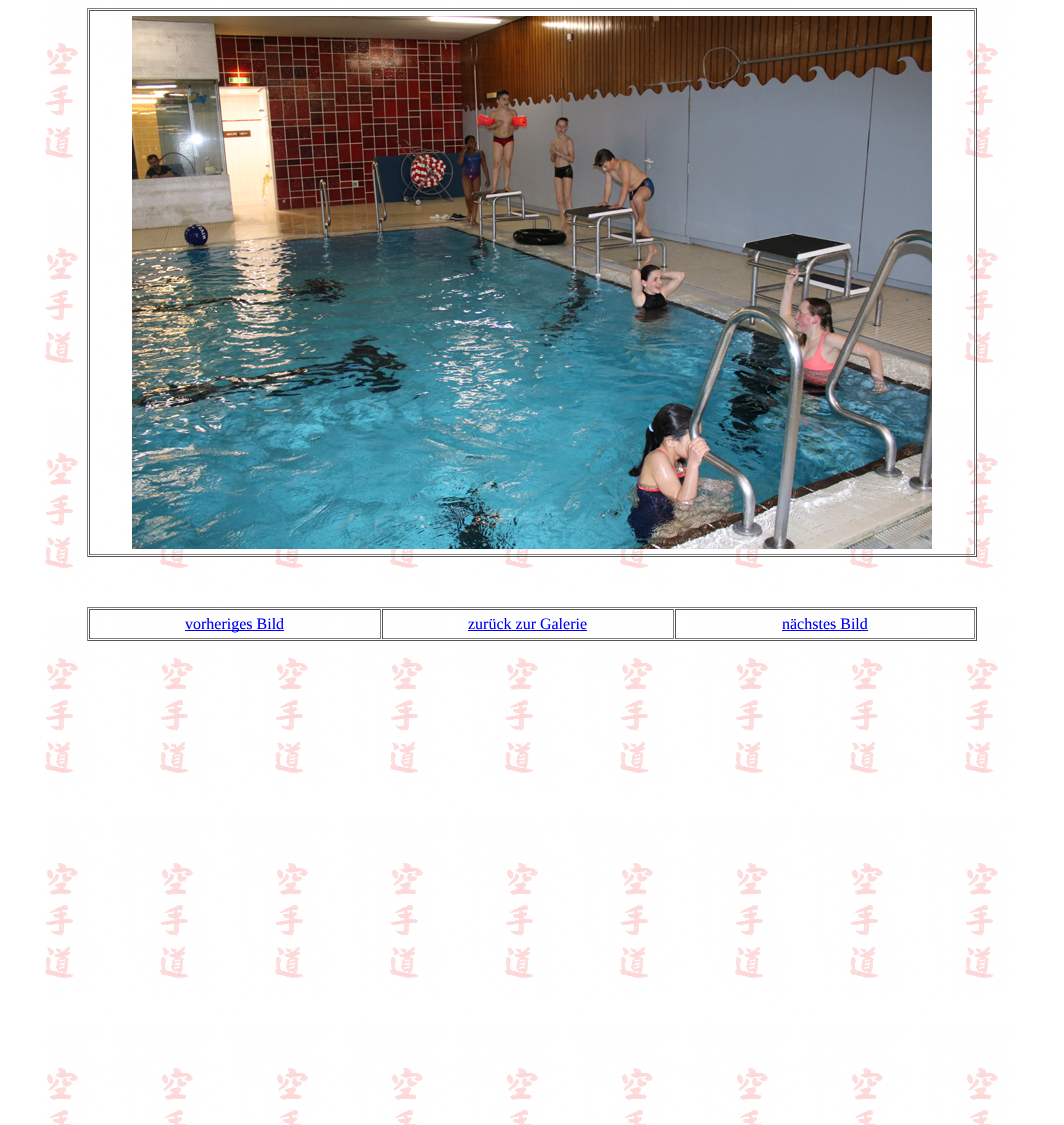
void draw(SkCanvas* canvas) {
    SkPaint paint;
    paint.setAntiAlias(true);
    canvas->clear(0xFFFFFFFF);
    canvas->drawImageRect(SkImages::DeferredFromEncodedData(SkData::MakeFromFileName("img1.png")), SkRect::MakeXYWH(45, 1, 968, 1124), SkSamplingOptions());
    paint.setColor(0xFF808080);
    canvas->drawRect(SkRect::MakeXYWH(87, 8, 890, 1), paint);
    paint.setColor(0xFF555555);
    canvas->drawRect(SkRect::MakeXYWH(976, 8, 1, 549), paint);
    canvas->drawRect(SkRect::MakeXYWH(87, 556, 890, 1), paint);
    paint.setColor(0xFF808080);
    canvas->drawRect(SkRect::MakeXYWH(87, 8, 1, 549), paint);
    paint.setColor(0xFF555555);
    canvas->drawRect(SkRect::MakeXYWH(89, 10, 886, 1), paint);
    paint.setColor(0xFF808080);
    canvas->drawRect(SkRect::MakeXYWH(974, 10, 1, 545), paint);
    canvas->drawRect(SkRect::MakeXYWH(89, 554, 886, 1), paint);
    paint.setColor(0xFF555555);
    canvas->drawRect(SkRect::MakeXYWH(89, 10, 1, 545), paint);
    canvas->drawImageRect(SkImages::DeferredFromEncodedData(SkData::MakeFromFileName("img2.png")), SkRect::MakeXYWH(132, 16, 800, 533), SkSamplingOptions());
    paint.setColor(0xFF808080);
    canvas->drawRect(SkRect::MakeXYWH(87, 607, 890, 1), paint);
    paint.setColor(0xFF555555);
    canvas->drawRect(SkRect::MakeXYWH(976, 607, 1, 34), paint);
    canvas->drawRect(SkRect::MakeXYWH(87, 640, 890, 1), paint);
    paint.setColor(0xFF808080);
    canvas->drawRect(SkRect::MakeXYWH(87, 607, 1, 34), paint);
    paint.setColor(0xFF555555);
    canvas->drawRect(SkRect::MakeXYWH(89, 609, 292, 1), paint);
    paint.setColor(0xFF808080);
    canvas->drawRect(SkRect::MakeXYWH(380, 609, 1, 30), paint);
    canvas->drawRect(SkRect::MakeXYWH(89, 638, 292, 1), paint);
    paint.setColor(0xFF555555);
    canvas->drawRect(SkRect::MakeXYWH(89, 609, 1, 30), paint);
    paint.setColor(0xFF0000FF);
    canvas->drawRect(SkRect::MakeXYWH(185, 630, 99, 1), paint);
    SkFont font1(fontMgr->matchFamilyStyle("Liberation Serif", SkFontStyle::Normal()), 16);
    font1.setSubpixel(true);
    canvas->drawString("vorheriges Bild", 185, 629, font1, paint);
    paint.setColor(0xFF555555);
    canvas->drawRect(SkRect::MakeXYWH(382, 609, 292, 1), paint);
    paint.setColor(0xFF808080);
    canvas->drawRect(SkRect::MakeXYWH(673, 609, 1, 30), paint);
    canvas->drawRect(SkRect::MakeXYWH(382, 638, 292, 1), paint);
    paint.setColor(0xFF555555);
    canvas->drawRect(SkRect::MakeXYWH(382, 609, 1, 30), paint);
    paint.setColor(0xFF0000FF);
    canvas->drawString("zurück zur Galerie", 468, 629, font1, paint);
    canvas->drawRect(SkRect::MakeXYWH(468, 630, 119, 1), paint);
    paint.setColor(0xFF555555);
    canvas->drawRect(SkRect::MakeXYWH(675, 609, 300, 1), paint);
    paint.setColor(0xFF808080);
    canvas->drawRect(SkRect::MakeXYWH(974, 609, 1, 30), paint);
    canvas->drawRect(SkRect::MakeXYWH(675, 638, 300, 1), paint);
    paint.setColor(0xFF555555);
    canvas->drawRect(SkRect::MakeXYWH(675, 609, 1, 30), paint);
    paint.setColor(0xFF0000FF);
    canvas->drawString("nächstes Bild", 782, 629, font1, paint);
    canvas->drawRect(SkRect::MakeXYWH(782, 630, 86, 1), paint);
}
